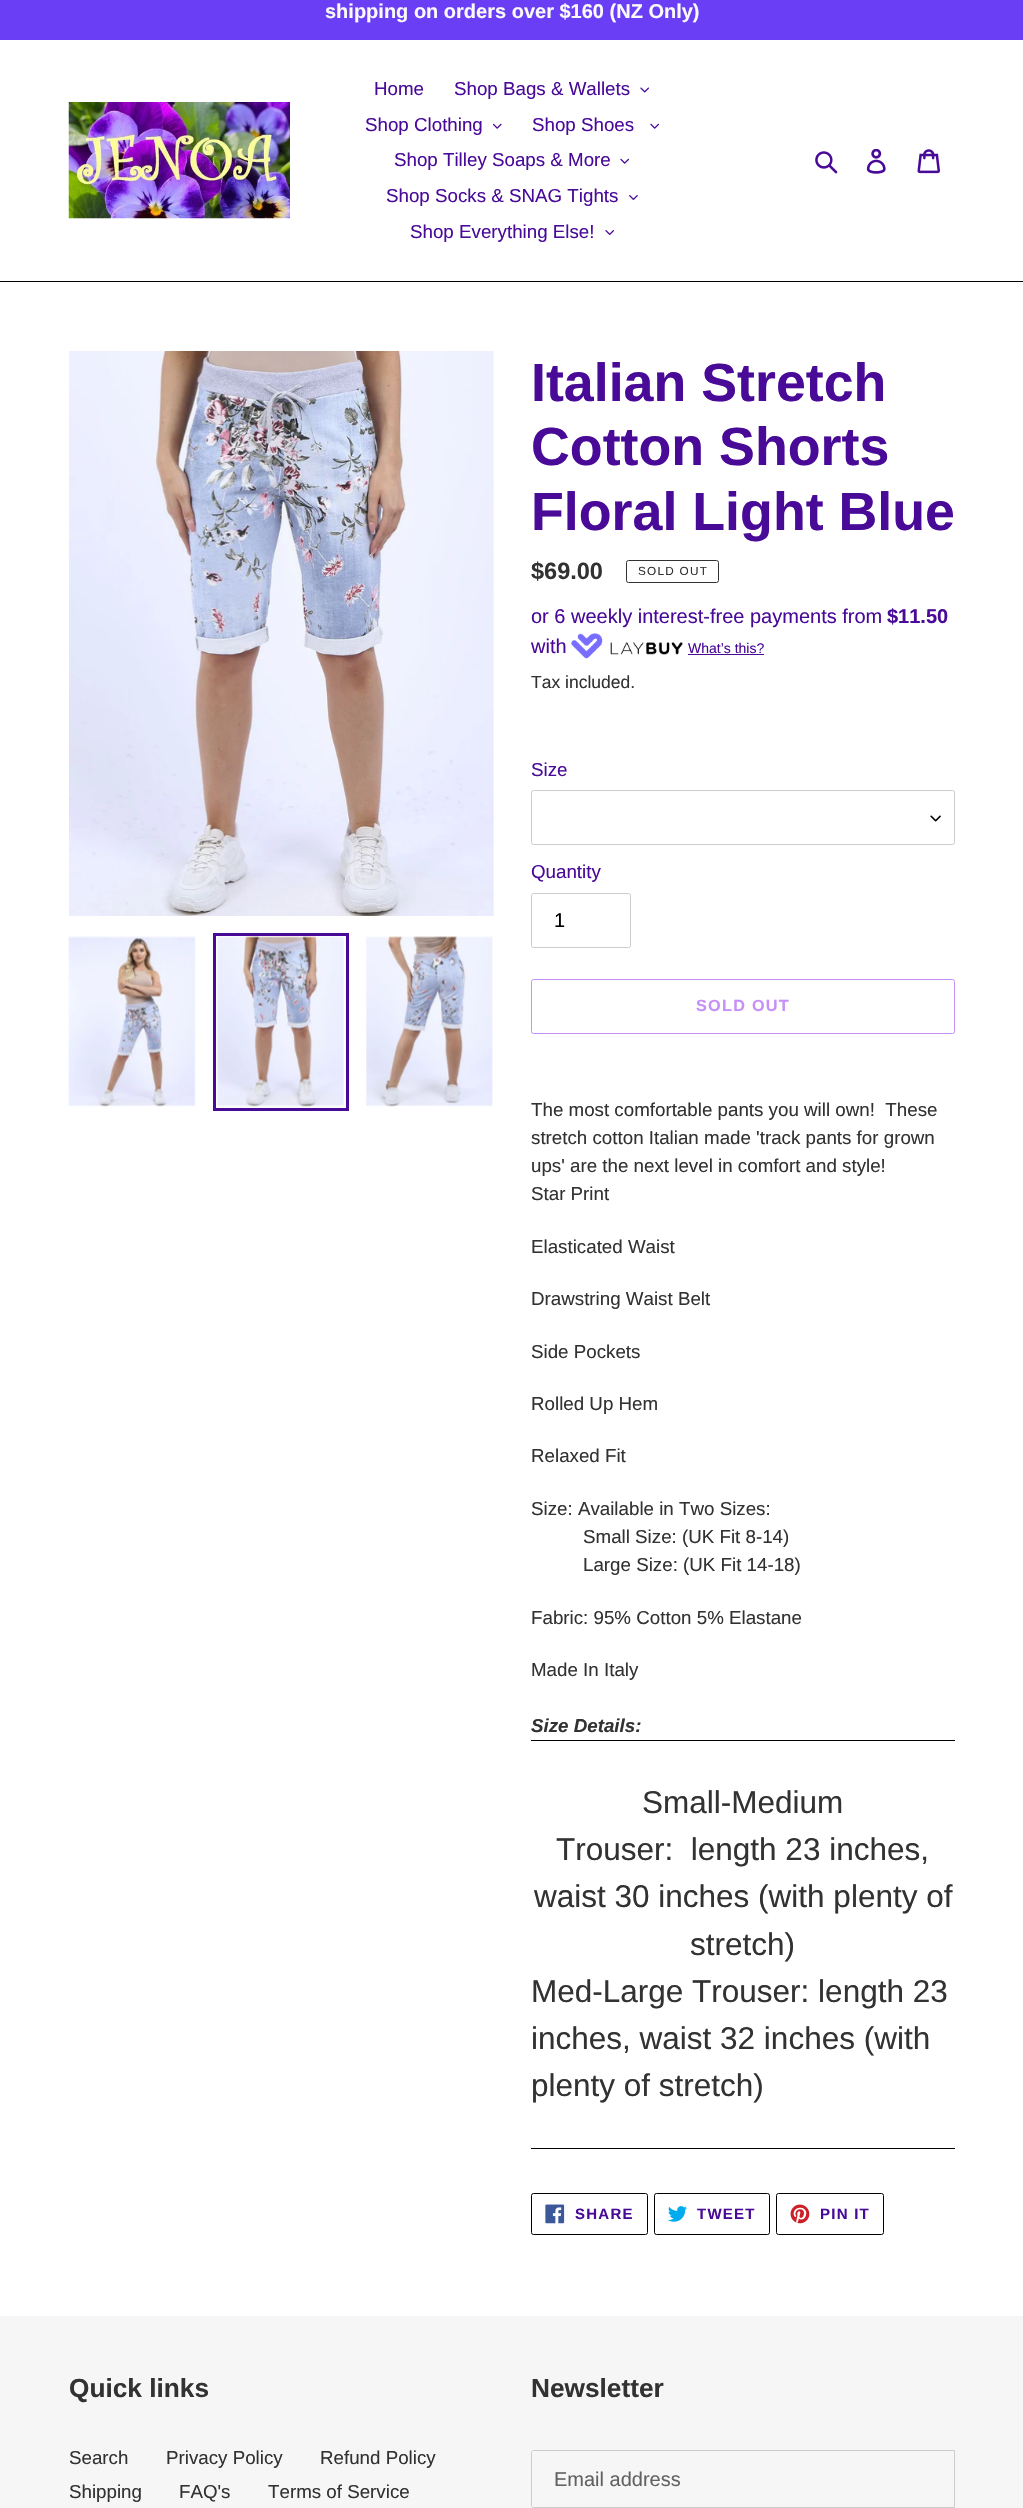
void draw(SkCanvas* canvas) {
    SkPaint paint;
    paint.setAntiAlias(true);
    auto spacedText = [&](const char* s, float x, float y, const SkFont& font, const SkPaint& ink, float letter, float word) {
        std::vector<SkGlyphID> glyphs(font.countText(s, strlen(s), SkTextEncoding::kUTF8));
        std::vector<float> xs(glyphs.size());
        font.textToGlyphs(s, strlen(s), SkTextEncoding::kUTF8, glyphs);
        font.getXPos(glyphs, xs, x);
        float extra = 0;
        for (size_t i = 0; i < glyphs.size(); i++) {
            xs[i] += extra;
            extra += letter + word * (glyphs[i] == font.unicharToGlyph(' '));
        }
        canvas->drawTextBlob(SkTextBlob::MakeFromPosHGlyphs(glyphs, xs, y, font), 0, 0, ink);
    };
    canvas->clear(0xFFFFFFFF);
    paint.setColor(0xFF693EF4);
    canvas->drawRect(SkRect::MakeXYWH(0, 0, 1023, 40), paint);
    SkFont font1(fontMgr->matchFamilyStyle("Liberation Sans", SkFontStyle::Bold()), 20);
    font1.setSubpixel(true);
    paint.setColor(0xFFFAFAFA);
    canvas->drawString("shipping on orders over $160 (NZ Only)", 325, 18, font1, paint);
    paint.setColor(0xFF000000);
    canvas->drawRect(SkRect::MakeXYWH(0, 281, 1023, 1), paint);
    canvas->drawImageRect(SkImages::DeferredFromEncodedData(SkData::MakeFromFileName("img1.png")), SkRect::MakeXYWH(68, 102, 222, 117), SkSamplingOptions());
    SkFont font2(fontMgr->matchFamilyStyle("Liberation Sans", SkFontStyle::Normal()), 18.75f);
    font2.setSubpixel(true);
    paint.setColor(0xFF490A98);
    canvas->drawString("Home", 374, 95, font2, paint);
    canvas->drawString("Shop Bags & Wallets", 454, 95, font2, paint);
    canvas->drawImageRect(SkImages::DeferredFromEncodedData(SkData::MakeFromFileName("img2.png")), SkRect::MakeXYWH(640, 87, 9, 6), SkSamplingOptions());
    canvas->drawString("Shop Clothing", 365, 131, font2, paint);
    canvas->drawImageRect(SkImages::DeferredFromEncodedData(SkData::MakeFromFileName("img3.png")), SkRect::MakeXYWH(493, 123, 9, 6), SkSamplingOptions());
    canvas->drawString("Shop Shoes", 532, 131, font2, paint);
    canvas->drawImageRect(SkImages::DeferredFromEncodedData(SkData::MakeFromFileName("img4.png")), SkRect::MakeXYWH(650, 123, 9, 6), SkSamplingOptions());
    canvas->drawString("Shop Tilley Soaps & More", 394, 166, font2, paint);
    canvas->drawImageRect(SkImages::DeferredFromEncodedData(SkData::MakeFromFileName("img4.png")), SkRect::MakeXYWH(620, 158, 9, 6), SkSamplingOptions());
    canvas->drawString("Shop Socks & SNAG Tights", 386, 202, font2, paint);
    canvas->drawImageRect(SkImages::DeferredFromEncodedData(SkData::MakeFromFileName("img5.png")), SkRect::MakeXYWH(629, 195, 9, 5), SkSamplingOptions());
    canvas->drawString("Shop Everything Else!", 410, 238, font2, paint);
    canvas->drawImageRect(SkImages::DeferredFromEncodedData(SkData::MakeFromFileName("img6.png")), SkRect::MakeXYWH(605, 230, 9, 5), SkSamplingOptions());
    canvas->drawImageRect(SkImages::DeferredFromEncodedData(SkData::MakeFromFileName("img7.png")), SkRect::MakeXYWH(815, 151, 23, 23), SkSamplingOptions());
    canvas->drawImageRect(SkImages::DeferredFromEncodedData(SkData::MakeFromFileName("img8.png")), SkRect::MakeXYWH(866, 149, 20, 25), SkSamplingOptions());
    canvas->drawImageRect(SkImages::DeferredFromEncodedData(SkData::MakeFromFileName("img9.png")), SkRect::MakeXYWH(917, 149, 23, 25), SkSamplingOptions());
    canvas->drawImageRect(SkImages::DeferredFromEncodedData(SkData::MakeFromFileName("img10.png")), SkRect::MakeXYWH(69, 351, 425, 565), SkSamplingOptions());
    canvas->drawImageRect(SkImages::DeferredFromEncodedData(SkData::MakeFromFileName("img11.png")), SkRect::MakeXYWH(68, 936, 128, 171), SkSamplingOptions());
    paint.setStyle(SkPaint::kStroke_Style);
    paint.setStrokeWidth(3);
    canvas->drawRect(SkRect::MakeXYWH(214.5f, 934.5f, 133, 175), paint);
    canvas->drawImageRect(SkImages::DeferredFromEncodedData(SkData::MakeFromFileName("img12.png")), SkRect::MakeXYWH(217, 936, 127, 171), SkSamplingOptions());
    canvas->drawImageRect(SkImages::DeferredFromEncodedData(SkData::MakeFromFileName("img13.png")), SkRect::MakeXYWH(366, 936, 127, 171), SkSamplingOptions());
    SkFont font3(fontMgr->matchFamilyStyle("Liberation Sans", SkFontStyle::Bold()), 53.75f);
    font3.setSubpixel(true);
    paint.setStyle(SkPaint::kFill_Style);
    canvas->drawString("Italian Stretch", 531, 401, font3, paint);
    canvas->drawString("Cotton Shorts", 531, 465, font3, paint);
    canvas->drawString("Floral Light Blue", 531, 530, font3, paint);
    SkFont font4(fontMgr->matchFamilyStyle("Liberation Sans", SkFontStyle::Bold()), 23.5f);
    font4.setSubpixel(true);
    paint.setColor(0xFF333232);
    canvas->drawString("$69.00", 531, 579, font4, paint);
    paint.setStyle(SkPaint::kStroke_Style);
    paint.setStrokeWidth(1);
    canvas->drawRoundRect(SkRect::MakeXYWH(626.5f, 560.5f, 92, 22), 2, 2, paint);
    SkFont font5(fontMgr->matchFamilyStyle("Liberation Sans", SkFontStyle::Normal()), 11.75f);
    font5.setSubpixel(true);
    paint.setStyle(SkPaint::kFill_Style);
    spacedText("SOLD OUT", 638, 575, font5, paint, 1.25f, 0);
    SkFont font6(fontMgr->matchFamilyStyle("Liberation Sans", SkFontStyle::Normal()), 20);
    font6.setSubpixel(true);
    paint.setColor(0xFF490A98);
    canvas->drawString("or 6 weekly interest-free payments from", 531, 623, font6, paint);
    canvas->drawString("$11.50", 887, 623, font1, paint);
    canvas->drawString("with", 531, 653, font6, paint);
    canvas->drawImageRect(SkImages::DeferredFromEncodedData(SkData::MakeFromFileName("img14.png")), SkRect::MakeXYWH(571, 633, 112, 26), SkSamplingOptions());
    SkFont font7(fontMgr->matchFamilyStyle("Liberation Sans", SkFontStyle::Normal()), 14);
    font7.setSubpixel(true);
    canvas->drawString("What’s this?", 688, 653, font7, paint);
    canvas->drawRect(SkRect::MakeXYWH(688, 654, 76, 1), paint);
    SkFont font8(fontMgr->matchFamilyStyle("Liberation Sans", SkFontStyle::Normal()), 17.5f);
    font8.setSubpixel(true);
    paint.setColor(0xFF333232);
    canvas->drawString("Tax included.", 531, 688, font8, paint);
    paint.setColor(0xFF490A98);
    canvas->drawString("Size", 531, 776, font2, paint);
    canvas->drawImageRect(SkImages::DeferredFromEncodedData(SkData::MakeFromFileName("img15.png")), SkRect::MakeXYWH(930, 815, 11, 7), SkSamplingOptions());
    paint.setStyle(SkPaint::kStroke_Style);
    paint.setColor(0xFFCCCCCC);
    canvas->drawRoundRect(SkRect::MakeXYWH(531.5f, 790.5f, 423, 54), 2, 2, paint);
    paint.setStyle(SkPaint::kFill_Style);
    paint.setColor(0xFF490A98);
    canvas->drawString("Quantity", 531, 878, font2, paint);
    paint.setStyle(SkPaint::kStroke_Style);
    paint.setColor(0xFFCCCCCC);
    canvas->drawRoundRect(SkRect::MakeXYWH(531.5f, 893.5f, 99, 54), 2, 2, paint);
    paint.setStyle(SkPaint::kFill_Style);
    paint.setColor(0xFF000000);
    canvas->drawString("1", 554, 927, font6, paint);
    paint.setStyle(SkPaint::kStroke_Style);
    paint.setColor(0xFFC68FF9);
    canvas->drawRoundRect(SkRect::MakeXYWH(531.5f, 979.5f, 423, 54), 2, 2, paint);
    SkFont font9(fontMgr->matchFamilyStyle("Liberation Sans", SkFontStyle::Bold()), 16.25f);
    font9.setSubpixel(true);
    paint.setStyle(SkPaint::kFill_Style);
    spacedText("SOLD OUT", 696, 1011, font9, paint, 1.25f, 0);
    paint.setColor(0xFF333232);
    canvas->drawString("The most comfortable pants you will own!  These", 531, 1116, font2, paint);
    canvas->drawString("stretch cotton Italian made 'track pants for grown", 531, 1144, font2, paint);
    canvas->drawString("ups' are the next level in comfort and style!", 531, 1172, font2, paint);
    canvas->drawString("Star Print", 531, 1200, font2, paint);
    canvas->drawString("Elasticated Waist", 531, 1253, font2, paint);
    canvas->drawString("Drawstring Waist Belt", 531, 1305, font2, paint);
    canvas->drawString("Side Pockets", 531, 1358, font2, paint);
    canvas->drawString("Rolled Up Hem", 531, 1410, font2, paint);
    canvas->drawString("Relaxed Fit", 531, 1462, font2, paint);
    canvas->drawString("Size: Available in Two Sizes:", 531, 1515, font2, paint);
    canvas->drawString("Small Size: (UK Fit 8-14)", 583, 1543, font2, paint);
    canvas->drawString("Large Size: (UK Fit 14-18)", 583, 1571, font2, paint);
    canvas->drawString("Fabric: 95% Cotton 5% Elastane", 531, 1624, font2, paint);
    canvas->drawString("Made In Italy", 531, 1676, font2, paint);
    SkFont font10(fontMgr->matchFamilyStyle("Liberation Sans", SkFontStyle::BoldItalic()), 18.75f);
    font10.setSubpixel(true);
    canvas->drawString("Size Details:", 531, 1732, font10, paint);
    paint.setColor(0xFF000000);
    canvas->drawRect(SkRect::MakeXYWH(531, 1740, 424, 1), paint);
    canvas->drawRect(SkRect::MakeXYWH(531, 2148, 424, 1), paint);
    SkFont font11(fontMgr->matchFamilyStyle("Liberation Sans", SkFontStyle::Normal()), 31.5f);
    font11.setSubpixel(true);
    paint.setColor(0xFF333232);
    canvas->drawString("Small-Medium", 642, 1813, font11, paint);
    canvas->drawString("Trouser:  length 23 inches,", 556, 1860, font11, paint);
    canvas->drawString("waist 30 inches (with plenty of", 534, 1907, font11, paint);
    canvas->drawString("stretch)", 690, 1955, font11, paint);
    canvas->drawString("Med-Large Trouser: length 23", 531, 2002, font11, paint);
    canvas->drawString("inches, waist 32 inches (with", 531, 2049, font11, paint);
    canvas->drawString("plenty of stretch)", 531, 2096, font11, paint);
    paint.setStyle(SkPaint::kStroke_Style);
    paint.setColor(0xFF000000);
    canvas->drawRoundRect(SkRect::MakeXYWH(531.5f, 2193.5f, 116, 41), 2, 2, paint);
    canvas->drawImageRect(SkImages::DeferredFromEncodedData(SkData::MakeFromFileName("img16.png")), SkRect::MakeXYWH(545, 2204, 20, 20), SkSamplingOptions());
    SkFont font12(fontMgr->matchFamilyStyle("Liberation Sans", SkFontStyle::Bold()), 15);
    font12.setSubpixel(true);
    paint.setStyle(SkPaint::kFill_Style);
    paint.setColor(0xFF490A98);
    spacedText("SHARE", 575, 2219, font12, paint, 1.25f, 0);
    paint.setStyle(SkPaint::kStroke_Style);
    paint.setColor(0xFF000000);
    canvas->drawRoundRect(SkRect::MakeXYWH(654.5f, 2193.5f, 115, 41), 2, 2, paint);
    canvas->drawImageRect(SkImages::DeferredFromEncodedData(SkData::MakeFromFileName("img17.png")), SkRect::MakeXYWH(668, 2206, 19, 16), SkSamplingOptions());
    paint.setStyle(SkPaint::kFill_Style);
    paint.setColor(0xFF490A98);
    spacedText("TWEET", 697, 2219, font12, paint, 1.25f, 0);
    paint.setStyle(SkPaint::kStroke_Style);
    paint.setColor(0xFF000000);
    canvas->drawRoundRect(SkRect::MakeXYWH(776.5f, 2193.5f, 107, 41), 2, 2, paint);
    canvas->drawImageRect(SkImages::DeferredFromEncodedData(SkData::MakeFromFileName("img18.png")), SkRect::MakeXYWH(790, 2204, 20, 20), SkSamplingOptions());
    paint.setStyle(SkPaint::kFill_Style);
    paint.setColor(0xFF490A98);
    spacedText("PIN IT", 820, 2219, font12, paint, 1.25f, 0);
    paint.setColor(0xFFF6F6F6);
    canvas->drawRect(SkRect::MakeXYWH(0, 2316, 1023, 192), paint);
    SkFont font13(fontMgr->matchFamilyStyle("Liberation Sans", SkFontStyle::Bold()), 26.25f);
    font13.setSubpixel(true);
    paint.setColor(0xFF333232);
    canvas->drawString("Quick links", 69, 2397, font13, paint);
    canvas->drawString("Search", 69, 2464, font2, paint);
    canvas->drawString("Privacy Policy", 166, 2464, font2, paint);
    canvas->drawString("Refund Policy", 320, 2464, font2, paint);
    canvas->drawString("Shipping", 69, 2498, font2, paint);
    canvas->drawString("FAQ's", 179, 2498, font2, paint);
    canvas->drawString("Terms of Service", 268, 2498, font2, paint);
    canvas->drawString("Newsletter", 531, 2397, font13, paint);
    paint.setStyle(SkPaint::kStroke_Style);
    paint.setColor(0xFFCCCCCC);
    canvas->drawPath(SkPathBuilder().moveTo(533.5f, 2450.5f).lineTo(954.5f, 2450.5f).lineTo(954.5f, 2507.5f).lineTo(533.5f, 2507.5f).cubicTo(532.5f, 2507.5f, 531.5f, 2506.5f, 531.5f, 2505.5f).lineTo(531.5f, 2452.5f).cubicTo(531.5f, 2451.5f, 532.5f, 2450.5f, 533.5f, 2450.5f).close().detach(), paint);
    paint.setStyle(SkPaint::kFill_Style);
    paint.setColor(0xFF626262);
    canvas->drawString("Email address", 554, 2486, font6, paint);
}
